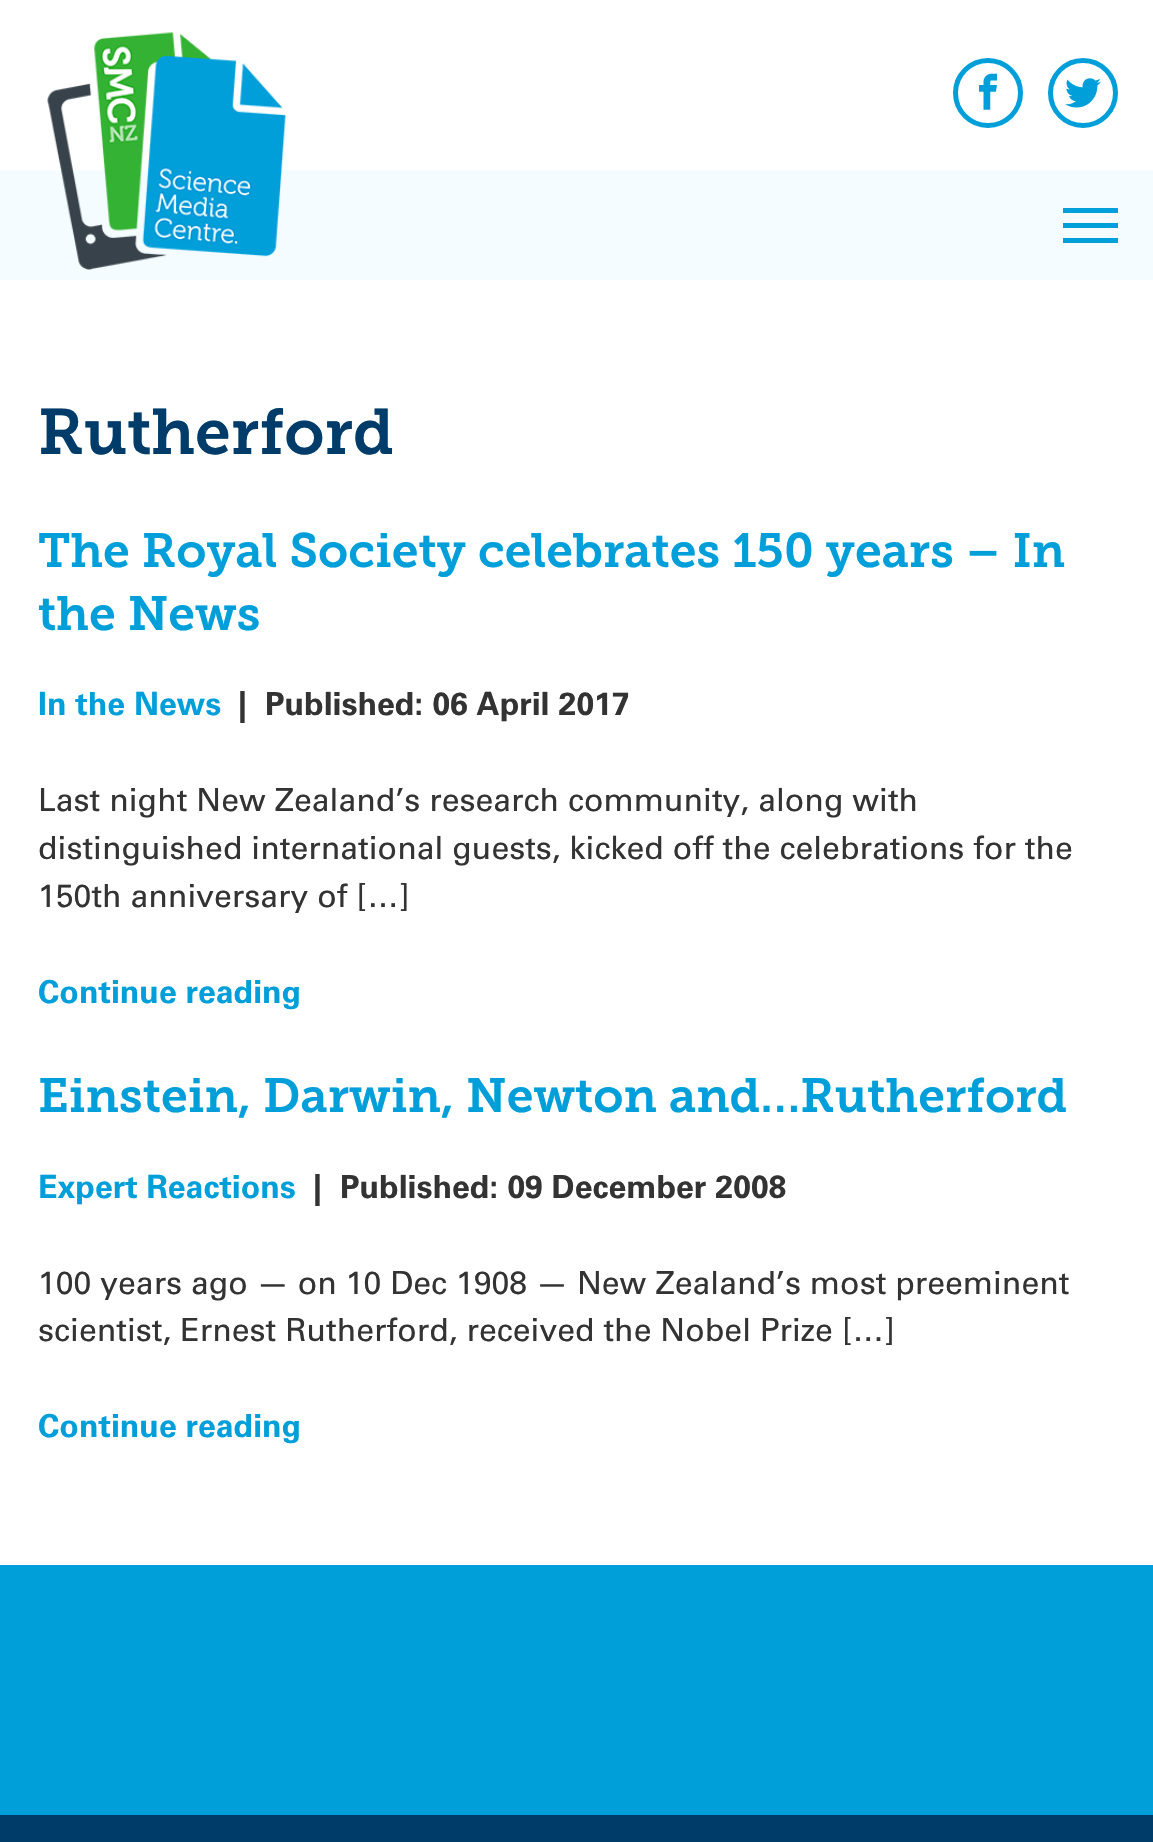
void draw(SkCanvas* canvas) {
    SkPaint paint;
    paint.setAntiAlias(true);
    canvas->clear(0xFFFFFFFF);
    paint.setColor(0xFFF4FCFF);
    canvas->drawRect(SkRect::MakeXYWH(0, 170, 1153, 110), paint);
    canvas->drawImageRect(SkImages::DeferredFromEncodedData(SkData::MakeFromFileName("img1.png")), SkRect::MakeXYWH(47, 32, 239, 238), SkSamplingOptions());
    paint.setStyle(SkPaint::kStroke_Style);
    paint.setStrokeWidth(5);
    paint.setColor(0xFF009FDA);
    canvas->drawCircle(988, 93, 32.5f, paint);
    canvas->drawImageRect(SkImages::DeferredFromEncodedData(SkData::MakeFromFileName("img2.png")), SkRect::MakeXYWH(979, 73, 18, 37), SkSamplingOptions());
    canvas->drawCircle(1083, 93, 32.5f, paint);
    canvas->drawImageRect(SkImages::DeferredFromEncodedData(SkData::MakeFromFileName("img3.png")), SkRect::MakeXYWH(1065, 78, 36, 30), SkSamplingOptions());
    paint.setStyle(SkPaint::kFill_Style);
    canvas->drawRect(SkRect::MakeXYWH(1063, 208, 55, 5), paint);
    canvas->drawRect(SkRect::MakeXYWH(1063, 223, 55, 5), paint);
    canvas->drawRect(SkRect::MakeXYWH(1063, 238, 55, 5), paint);
    SkFont font1(fontMgr->matchFamilyStyle("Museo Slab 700", SkFontStyle(600, SkFontStyle::kNormal_Width, SkFontStyle::kUpright_Slant)), 64);
    font1.setSubpixel(true);
    paint.setColor(0xFF003C69);
    canvas->drawString("Rutherford", 38, 454, font1, paint);
    SkFont font2(fontMgr->matchFamilyStyle("Museo Slab 700", SkFontStyle(600, SkFontStyle::kNormal_Width, SkFontStyle::kUpright_Slant)), 48);
    font2.setSubpixel(true);
    paint.setColor(0xFF009FDA);
    canvas->drawString("The Royal Society celebrates 150 years – In", 38, 567, font2, paint);
    canvas->drawString("the News", 38, 630, font2, paint);
    SkFont font3(fontMgr->matchFamilyStyle("Univers", SkFontStyle::Normal()), 32);
    font3.setSubpixel(true);
    canvas->drawString("In the News", 38, 715, font3, paint);
    paint.setColor(0xFF333333);
    canvas->drawString("|", 238, 715, font3, paint);
    canvas->drawString("Published: 06 April 2017", 265, 715, font3, paint);
    SkFont font4(fontMgr->matchFamilyStyle("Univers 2", SkFontStyle::Normal()), 32);
    font4.setSubpixel(true);
    canvas->drawString("Last night New Zealand’s research community, along with", 38, 811, font4, paint);
    canvas->drawString("distinguished international guests, kicked off the celebrations for the", 38, 859, font4, paint);
    canvas->drawString("150th anniversary of […]", 38, 907, font4, paint);
    paint.setColor(0xFF009FDA);
    canvas->drawString("Continue reading", 38, 1003, font3, paint);
    canvas->drawString("Einstein, Darwin, Newton and…Rutherford", 38, 1112, font2, paint);
    canvas->drawString("Expert Reactions", 38, 1198, font3, paint);
    paint.setColor(0xFF333333);
    canvas->drawString("|", 313, 1198, font3, paint);
    canvas->drawString("Published: 09 December 2008", 340, 1198, font3, paint);
    canvas->drawString("100 years ago — on 10 Dec 1908 — New Zealand’s most preeminent", 38, 1294, font4, paint);
    canvas->drawString("scientist, Ernest Rutherford, received the Nobel Prize […]", 38, 1341, font4, paint);
    paint.setColor(0xFF009FDA);
    canvas->drawString("Continue reading", 38, 1437, font3, paint);
    paint.setColor(0xFF003C69);
    canvas->drawRect(SkRect::MakeXYWH(0, 1815, 1153, 27), paint);
    paint.setColor(0xFF009FDA);
    canvas->drawRect(SkRect::MakeXYWH(0, 1565, 1153, 250), paint);
}
